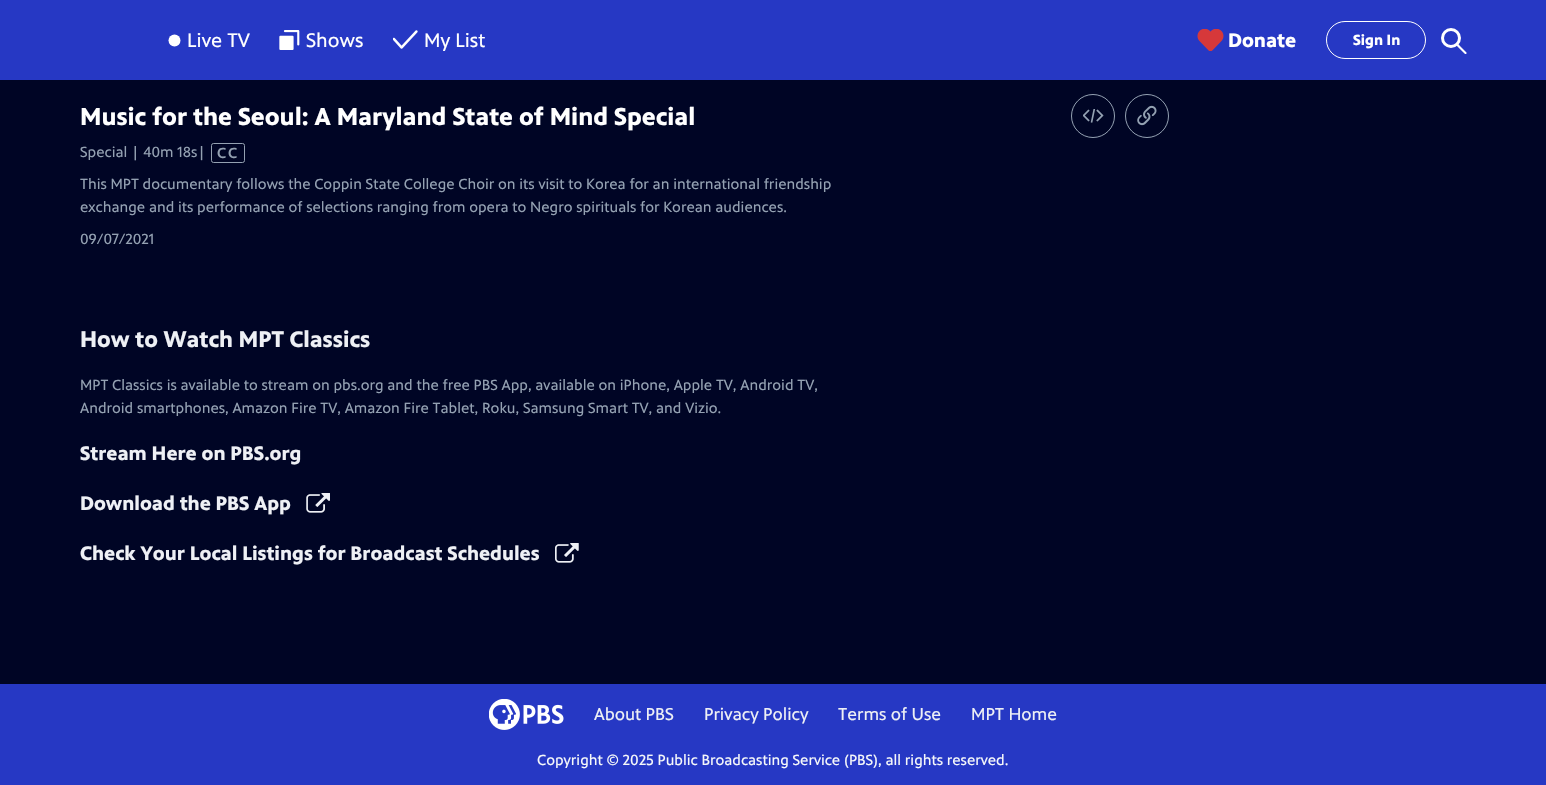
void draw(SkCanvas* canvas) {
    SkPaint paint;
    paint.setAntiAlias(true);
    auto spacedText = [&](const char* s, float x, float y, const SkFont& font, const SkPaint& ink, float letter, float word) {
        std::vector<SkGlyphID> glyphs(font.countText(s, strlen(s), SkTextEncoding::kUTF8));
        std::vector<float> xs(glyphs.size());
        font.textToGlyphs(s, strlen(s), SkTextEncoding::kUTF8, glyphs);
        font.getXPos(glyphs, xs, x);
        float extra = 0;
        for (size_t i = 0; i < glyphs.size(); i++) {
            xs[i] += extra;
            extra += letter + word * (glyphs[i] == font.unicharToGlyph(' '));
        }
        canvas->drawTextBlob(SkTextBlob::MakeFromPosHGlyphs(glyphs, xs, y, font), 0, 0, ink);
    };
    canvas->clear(0xFF000525);
    paint.setColor(0xFF2638C4);
    canvas->drawRect(SkRect::MakeXYWH(0, 0, 1546, 80), paint);
    paint.setColor(0xFFFFFFFF);
    canvas->drawCircle(174.5f, 40.5f, 6, paint);
    SkFont font1(fontMgr->matchFamilyStyle("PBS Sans", SkFontStyle::Normal()), 20);
    font1.setSubpixel(true);
    canvas->drawString("Live TV", 187, 47, font1, paint);
    canvas->drawImageRect(SkImages::DeferredFromEncodedData(SkData::MakeFromFileName("img1.png")), SkRect::MakeXYWH(279, 30, 21, 20), SkSamplingOptions());
    canvas->drawString("Shows", 306, 47, font1, paint);
    canvas->drawImageRect(SkImages::DeferredFromEncodedData(SkData::MakeFromFileName("img2.png")), SkRect::MakeXYWH(393, 30, 25, 19), SkSamplingOptions());
    canvas->drawString("My List", 424, 47, font1, paint);
    canvas->drawImageRect(SkImages::DeferredFromEncodedData(SkData::MakeFromFileName("img3.png")), SkRect::MakeXYWH(1197, 29, 27, 22), SkSamplingOptions());
    SkFont font2(fontMgr->matchFamilyStyle("PBS Sans", SkFontStyle::Bold()), 20);
    font2.setSubpixel(true);
    canvas->drawString("Donate", 1228, 47, font2, paint);
    paint.setStyle(SkPaint::kStroke_Style);
    paint.setStrokeWidth(1);
    canvas->drawRoundRect(SkRect::MakeXYWH(1326.5f, 21.5f, 99, 37), 18.5f, 18.5f, paint);
    SkFont font3(fontMgr->matchFamilyStyle("PBS Sans", SkFontStyle::Bold()), 15);
    font3.setSubpixel(true);
    paint.setStyle(SkPaint::kFill_Style);
    canvas->drawString("Sign In", 1353, 45, font3, paint);
    paint.setStyle(SkPaint::kStroke_Style);
    paint.setStrokeWidth(3);
    canvas->drawCircle(1451, 38, 8.5f, paint);
    paint.setStyle(SkPaint::kFill_Style);
    canvas->drawPath(SkPathBuilder().moveTo(1464.5f, 53.5f).lineTo(1456, 45).lineTo(1456, 44).cubicTo(1457.5f, 42, 1460, 46, 1460.5f, 46.5f).lineTo(1466.5f, 52.5f).cubicTo(1467, 54, 1465.5f, 54.5f, 1464.5f, 53.5f).close().detach(), paint);
    SkFont font4(fontMgr->matchFamilyStyle("PBS Sans", SkFontStyle::Bold()), 25);
    font4.setSubpixel(true);
    canvas->drawString("Music for the Seoul: A Maryland State of Mind Special", 80, 125, font4, paint);
    SkFont font5(fontMgr->matchFamilyStyle("PBS Sans", SkFontStyle::Normal()), 15);
    font5.setSubpixel(true);
    paint.setColor(0xFF94A1B2);
    canvas->drawString("Special | 40m 18s|", 80, 157, font5, paint);
    paint.setStyle(SkPaint::kStroke_Style);
    paint.setStrokeWidth(1);
    canvas->drawRoundRect(SkRect::MakeXYWH(211.5f, 143.5f, 33, 19), 2, 2, paint);
    SkFont font6(fontMgr->matchFamilyStyle("PBS Sans", SkFontStyle(500, SkFontStyle::kNormal_Width, SkFontStyle::kUpright_Slant)), 15);
    font6.setSubpixel(true);
    paint.setStyle(SkPaint::kFill_Style);
    spacedText("CC", 217, 158, font6, paint, 2, 0);
    canvas->drawString("This MPT documentary follows the Coppin State College Choir on its visit to Korea for an international friendship", 80, 189, font5, paint);
    canvas->drawString("exchange and its performance of selections ranging from opera to Negro spirituals for Korean audiences.", 80, 212, font5, paint);
    canvas->drawString("09/07/2021", 80, 244, font5, paint);
    paint.setStyle(SkPaint::kStroke_Style);
    canvas->drawCircle(1093, 116, 21.5f, paint);
    canvas->drawImageRect(SkImages::DeferredFromEncodedData(SkData::MakeFromFileName("img4.png")), SkRect::MakeXYWH(1083, 109, 21, 14), SkSamplingOptions());
    canvas->drawCircle(1147, 116, 21.5f, paint);
    canvas->drawImageRect(SkImages::DeferredFromEncodedData(SkData::MakeFromFileName("img5.png")), SkRect::MakeXYWH(1137, 105, 20, 21), SkSamplingOptions());
    SkFont font7(fontMgr->matchFamilyStyle("PBS Sans", SkFontStyle::Bold()), 23);
    font7.setSubpixel(true);
    paint.setStyle(SkPaint::kFill_Style);
    paint.setColor(0xFFEEF0F5);
    canvas->drawString("How to Watch MPT Classics", 80, 347, font7, paint);
    paint.setColor(0xFF94A1B2);
    canvas->drawString("MPT Classics is available to stream on pbs.org and the free PBS App, available on iPhone, Apple TV, Android TV,", 80, 390, font5, paint);
    canvas->drawString("Android smartphones, Amazon Fire TV, Amazon Fire Tablet, Roku, Samsung Smart TV, and Vizio.", 80, 413, font5, paint);
    paint.setColor(0xFFEEF0F5);
    canvas->drawString("Stream Here on PBS.org", 80, 460, font2, paint);
    canvas->drawString("Download the PBS App", 80, 510, font2, paint);
    canvas->drawImageRect(SkImages::DeferredFromEncodedData(SkData::MakeFromFileName("img6.png")), SkRect::MakeXYWH(306, 493, 24, 20), SkSamplingOptions());
    canvas->drawString("Check Your Local Listings for Broadcast Schedules", 80, 560, font2, paint);
    canvas->drawImageRect(SkImages::DeferredFromEncodedData(SkData::MakeFromFileName("img7.png")), SkRect::MakeXYWH(555, 543, 24, 20), SkSamplingOptions());
    paint.setColor(0xFF2638C4);
    canvas->drawRect(SkRect::MakeXYWH(0, 684, 1546, 101), paint);
    canvas->drawImageRect(SkImages::DeferredFromEncodedData(SkData::MakeFromFileName("img8.png")), SkRect::MakeXYWH(489, 699, 75, 31), SkSamplingOptions());
    SkFont font8(fontMgr->matchFamilyStyle("PBS Sans", SkFontStyle::Normal()), 17.5f);
    font8.setSubpixel(true);
    paint.setColor(0xFFEEF0F5);
    canvas->drawString("About PBS", 594, 720, font8, paint);
    canvas->drawString("Privacy Policy", 704, 720, font8, paint);
    canvas->drawString("Terms of Use", 838, 720, font8, paint);
    canvas->drawString("MPT Home", 971, 720, font8, paint);
    paint.setColor(0xFFF6F8FA);
    canvas->drawString("Copyright © 2025 Public Broadcasting Service (PBS), all rights reserved.", 537, 765, font5, paint);
}
